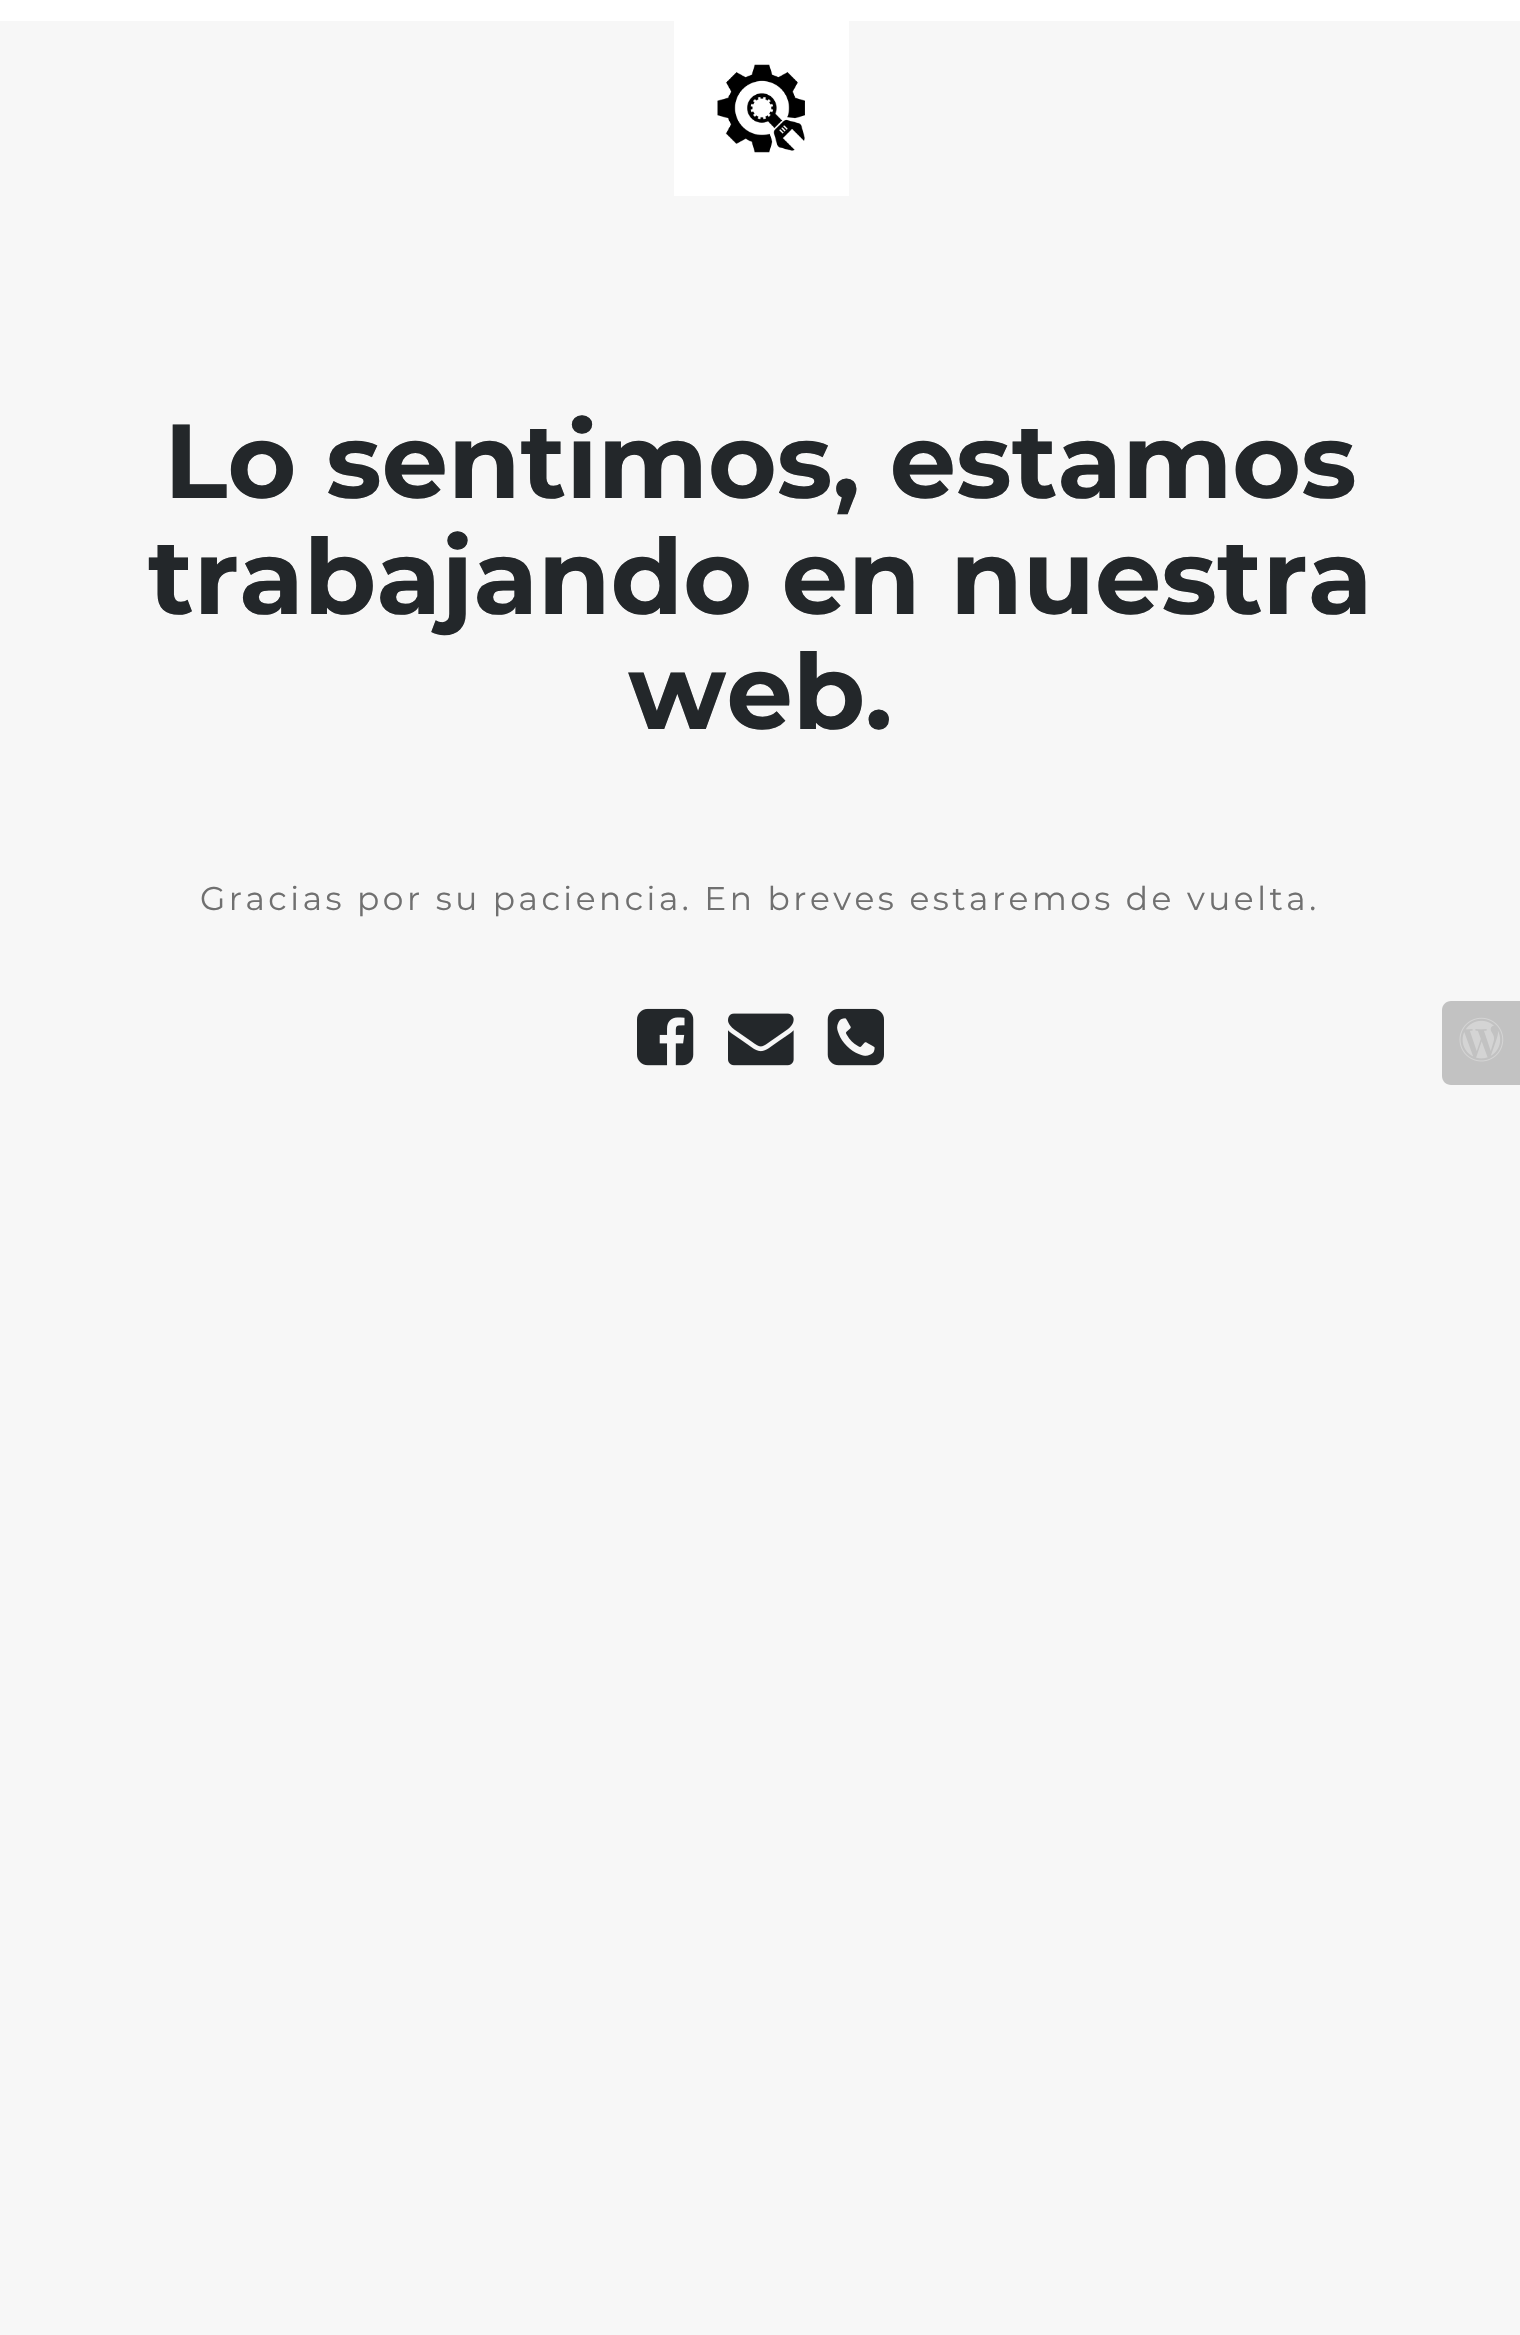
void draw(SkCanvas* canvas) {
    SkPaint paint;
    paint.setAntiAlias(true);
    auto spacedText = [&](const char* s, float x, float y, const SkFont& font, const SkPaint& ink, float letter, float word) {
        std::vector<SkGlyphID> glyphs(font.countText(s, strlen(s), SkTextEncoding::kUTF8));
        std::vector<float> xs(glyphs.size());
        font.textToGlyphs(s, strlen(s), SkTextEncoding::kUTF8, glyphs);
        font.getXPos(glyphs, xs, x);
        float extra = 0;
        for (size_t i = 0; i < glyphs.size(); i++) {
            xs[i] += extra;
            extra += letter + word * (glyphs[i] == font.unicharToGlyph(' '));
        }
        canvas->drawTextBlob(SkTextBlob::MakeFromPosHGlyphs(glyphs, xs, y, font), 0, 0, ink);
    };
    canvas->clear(0xFFF7F7F7);
    paint.setColor(0xFFFFFFFF);
    canvas->drawRect(SkRect::MakeXYWH(0, 0, 1520, 21), paint);
    canvas->drawRect(SkRect::MakeXYWH(674, 21, 175, 175), paint);
    canvas->drawImageRect(SkImages::DeferredFromEncodedData(SkData::MakeFromFileName("img1.png")), SkRect::MakeXYWH(717, 64, 88, 89), SkSamplingOptions());
    SkFont font1(fontMgr->matchFamilyStyle("Montserrat", SkFontStyle(100, SkFontStyle::kNormal_Width, SkFontStyle::kUpright_Slant)), 105);
    font1.setSubpixel(true);
    paint.setColor(0xFF23272A);
    canvas->drawString("Lo sentimos, estamos", 164, 498, font1, paint);
    canvas->drawString("trabajando en nuestra", 148, 614, font1, paint);
    canvas->drawString("web.", 628, 729, font1, paint);
    SkFont font2(fontMgr->matchFamilyStyle("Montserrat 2", SkFontStyle(100, SkFontStyle::kNormal_Width, SkFontStyle::kUpright_Slant)), 32.8f);
    font2.setSubpixel(true);
    paint.setColor(0xFF707070);
    spacedText("Gracias por su paciencia. En breves estaremos de vuelta.", 200, 910, font2, paint, 3.5f, 0);
    canvas->drawImageRect(SkImages::DeferredFromEncodedData(SkData::MakeFromFileName("img2.png")), SkRect::MakeXYWH(637, 1008, 57, 58), SkSamplingOptions());
    canvas->drawImageRect(SkImages::DeferredFromEncodedData(SkData::MakeFromFileName("img3.png")), SkRect::MakeXYWH(728, 1013, 66, 53), SkSamplingOptions());
    canvas->drawImageRect(SkImages::DeferredFromEncodedData(SkData::MakeFromFileName("img4.png")), SkRect::MakeXYWH(827, 1008, 57, 58), SkSamplingOptions());
    paint.setColor(0xFFC2C2C2);
    canvas->drawPath(SkPathBuilder().moveTo(1451, 1001).lineTo(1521, 1001).lineTo(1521, 1085).lineTo(1451, 1085).cubicTo(1446, 1085, 1442, 1081, 1442, 1076).lineTo(1442, 1010).cubicTo(1442, 1005, 1446, 1001, 1451, 1001).close().detach(), paint);
    canvas->drawImageRect(SkImages::DeferredFromEncodedData(SkData::MakeFromFileName("img5.png")), SkRect::MakeXYWH(1459, 1017, 45, 45), SkSamplingOptions());
}
